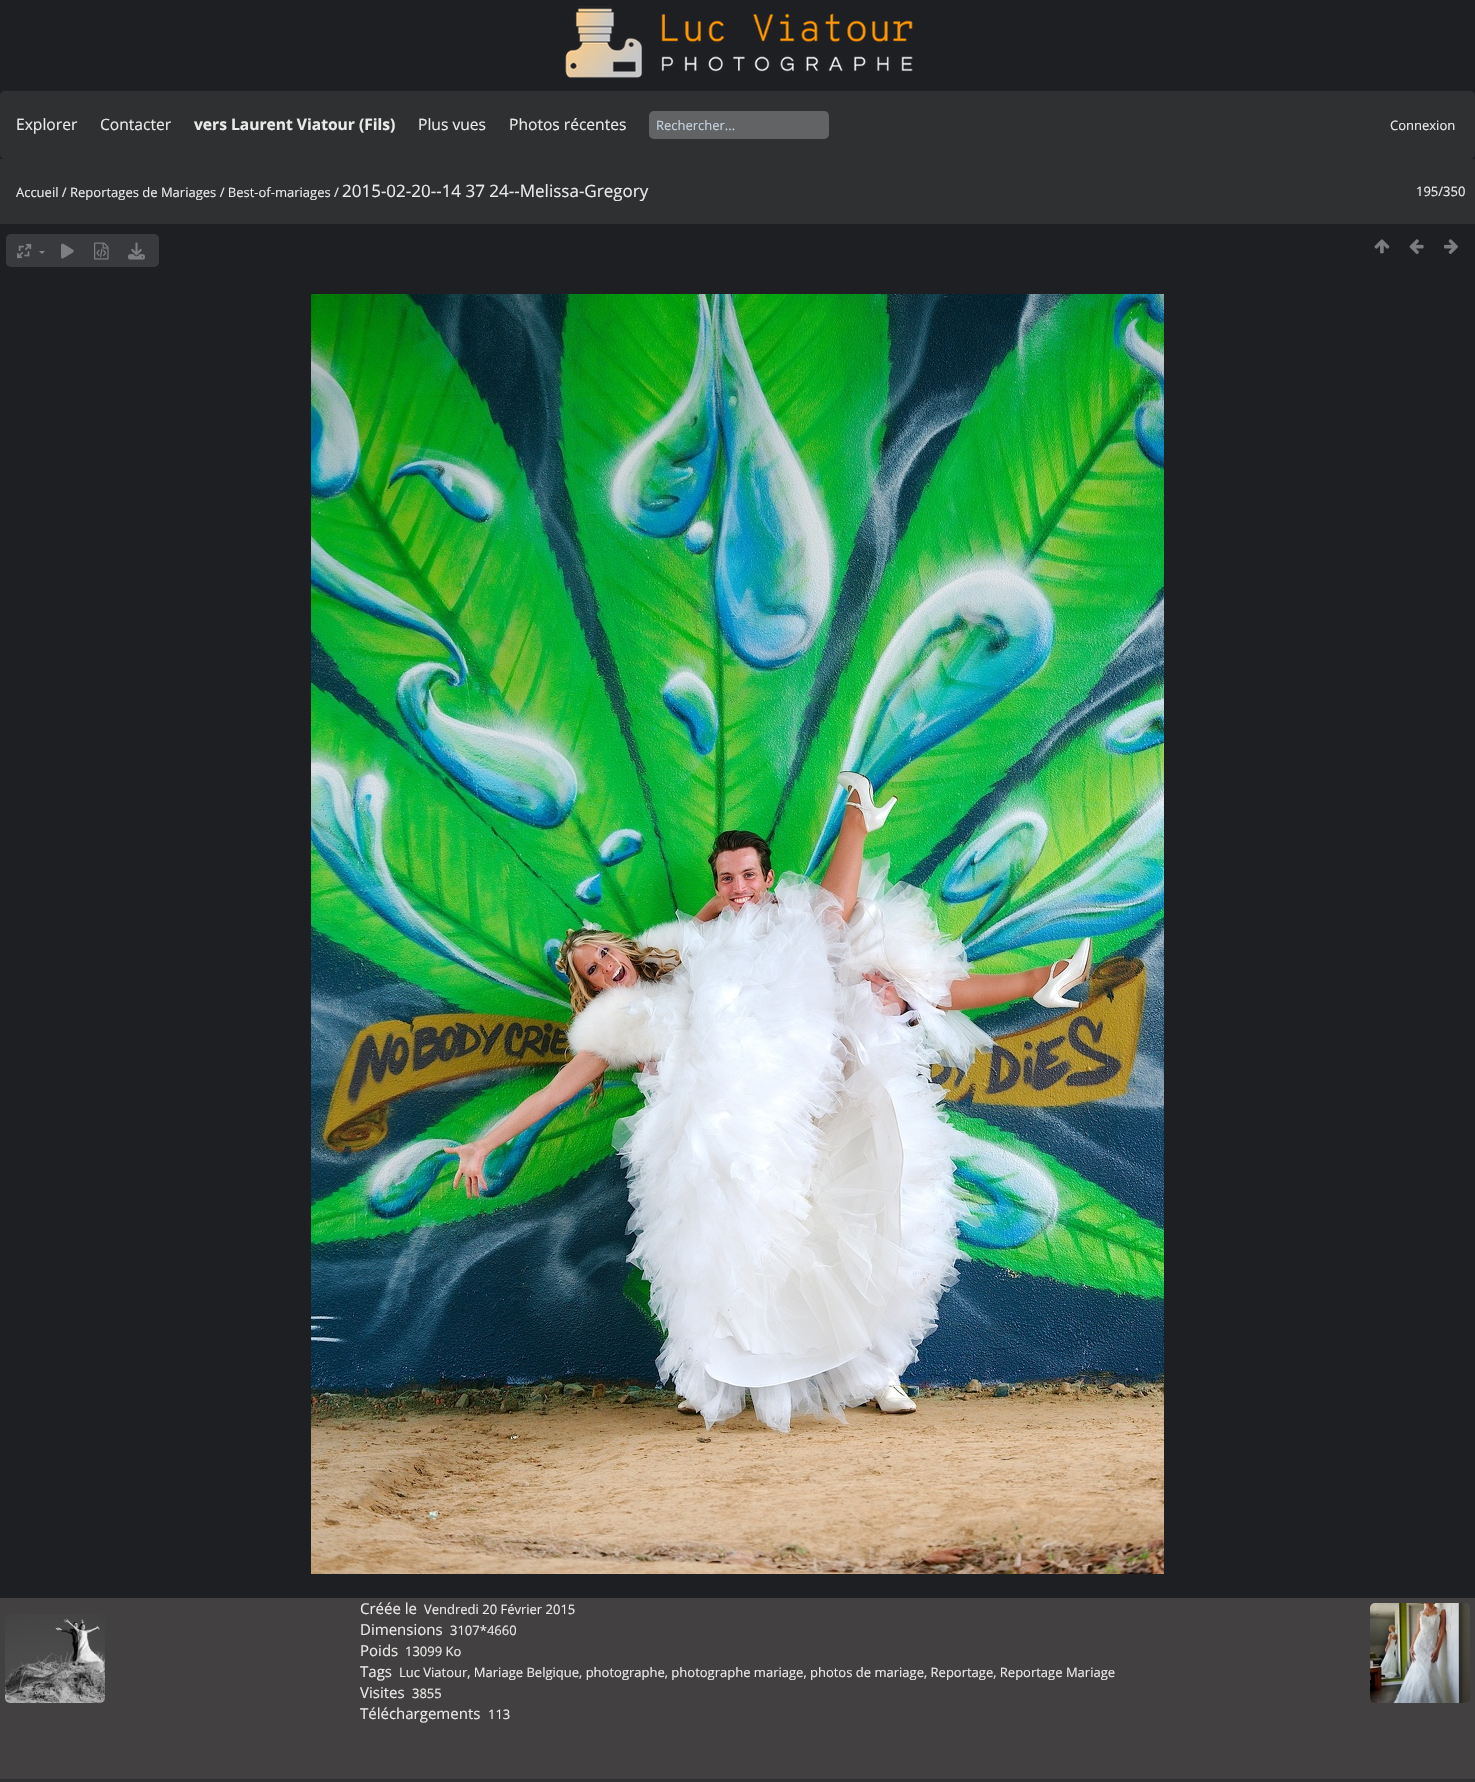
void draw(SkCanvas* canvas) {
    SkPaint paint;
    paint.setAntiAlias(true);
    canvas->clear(0xFF1E1F23);
    canvas->drawImageRect(SkImages::DeferredFromEncodedData(SkData::MakeFromFileName("img1.png")), SkRect::MakeXYWH(565, 6, 348, 72), SkSamplingOptions());
    paint.setColor(0xFF2F3032);
    canvas->drawRoundRect(SkRect::MakeXYWH(0, 91, 1475, 68), 5, 5, paint);
    SkFont font1(fontMgr->matchFamilyStyle("Open Sans", SkFontStyle::Normal()), 15.6f);
    font1.setSubpixel(true);
    paint.setColor(0xFFEAEAE9);
    canvas->drawString("Explorer", 16, 130, font1, paint);
    canvas->drawString("Contacter", 100, 130, font1, paint);
    SkFont font2(fontMgr->matchFamilyStyle("Open Sans", SkFontStyle::Bold()), 15.6f);
    font2.setSubpixel(true);
    canvas->drawString("vers Laurent Viatour (Fils)", 194, 130, font2, paint);
    canvas->drawString("Plus vues", 418, 130, font1, paint);
    canvas->drawString("Photos récentes", 509, 130, font1, paint);
    paint.setColor(0xFF616364);
    canvas->drawRoundRect(SkRect::MakeXYWH(649, 111, 180, 28), 5, 5, paint);
    SkFont font3(fontMgr->matchFamilyStyle("Open Sans", SkFontStyle::Normal()), 13);
    font3.setSubpixel(true);
    paint.setColor(0xFFC7D3E1);
    canvas->drawString("Rechercher...", 656, 130, font3, paint);
    paint.setColor(0xFFEAEAE9);
    canvas->drawString("Connexion", 1390, 130, font3, paint);
    paint.setColor(0xFF2F3032);
    canvas->drawRect(SkRect::MakeXYWH(0, 159, 1475, 65), paint);
    paint.setColor(0xFFEAEAE9);
    canvas->drawString("Accueil / Reportages de Mariages / Best-of-mariages /", 16, 197, font3, paint);
    SkFont font4(fontMgr->matchFamilyStyle("Open Sans", SkFontStyle::Normal()), 17);
    font4.setSubpixel(true);
    canvas->drawString("2015-02-20--14 37 24--Melissa-Gregory", 342, 197, font4, paint);
    canvas->drawString("195/350", 1416, 196, font3, paint);
    paint.setColor(0xFF393A3D);
    canvas->drawRoundRect(SkRect::MakeXYWH(6, 234, 153, 33), 5, 5, paint);
    canvas->drawImageRect(SkImages::DeferredFromEncodedData(SkData::MakeFromFileName("img2.png")), SkRect::MakeXYWH(17, 243, 15, 16), SkSamplingOptions());
    paint.setColor(0xFF848588);
    canvas->drawPath(SkPathBuilder().moveTo(39, 251).lineTo(45, 251).lineTo(42, 254).close().detach(), paint);
    canvas->drawImageRect(SkImages::DeferredFromEncodedData(SkData::MakeFromFileName("img3.png")), SkRect::MakeXYWH(61, 243, 13, 16), SkSamplingOptions());
    canvas->drawImageRect(SkImages::DeferredFromEncodedData(SkData::MakeFromFileName("img4.png")), SkRect::MakeXYWH(94, 242, 15, 18), SkSamplingOptions());
    canvas->drawImageRect(SkImages::DeferredFromEncodedData(SkData::MakeFromFileName("img5.png")), SkRect::MakeXYWH(128, 242, 17, 18), SkSamplingOptions());
    canvas->drawImageRect(SkImages::DeferredFromEncodedData(SkData::MakeFromFileName("img6.png")), SkRect::MakeXYWH(1374, 239, 16, 15), SkSamplingOptions());
    canvas->drawImageRect(SkImages::DeferredFromEncodedData(SkData::MakeFromFileName("img7.png")), SkRect::MakeXYWH(1409, 239, 15, 15), SkSamplingOptions());
    canvas->drawImageRect(SkImages::DeferredFromEncodedData(SkData::MakeFromFileName("img8.png")), SkRect::MakeXYWH(1444, 239, 14, 15), SkSamplingOptions());
    canvas->drawImageRect(SkImages::DeferredFromEncodedData(SkData::MakeFromFileName("img9.png")), SkRect::MakeXYWH(311, 294, 853, 1280), SkSamplingOptions());
    paint.setColor(0xFF424040);
    canvas->drawRect(SkRect::MakeXYWH(0, 1598, 1475, 181), paint);
    SkFont font5(fontMgr->matchFamilyStyle("Open Sans", SkFontStyle::Normal()), 15);
    font5.setSubpixel(true);
    paint.setColor(0xFFEAEAE9);
    canvas->drawString("Créée le", 360, 1614, font5, paint);
    canvas->drawString("Vendredi 20 Février 2015", 424, 1614, font3, paint);
    canvas->drawString("Dimensions", 360, 1635, font5, paint);
    canvas->drawString("3107*4660", 450, 1635, font3, paint);
    canvas->drawString("Poids", 360, 1656, font5, paint);
    canvas->drawString("13099 Ko", 405, 1656, font3, paint);
    canvas->drawString("Tags", 360, 1677, font5, paint);
    canvas->drawString("Luc Viatour, Mariage Belgique, photographe, photographe mariage, photos de mariage, Reportage, Reportage Mariage", 399, 1677, font3, paint);
    canvas->drawString("Visites", 360, 1698, font5, paint);
    canvas->drawString("3855", 412, 1698, font3, paint);
    canvas->drawString("Téléchargements", 360, 1719, font5, paint);
    canvas->drawString("113", 488, 1719, font3, paint);
    canvas->drawImageRect(SkImages::DeferredFromEncodedData(SkData::MakeFromFileName("img10.png")), SkRect::MakeXYWH(5, 1614, 100, 89), SkSamplingOptions());
    canvas->drawImageRect(SkImages::DeferredFromEncodedData(SkData::MakeFromFileName("img11.png")), SkRect::MakeXYWH(1370, 1603, 100, 100), SkSamplingOptions());
    paint.setColor(0xFF2F3032);
    canvas->drawRect(SkRect::MakeXYWH(0, 1779, 1475, 3), paint);
}
